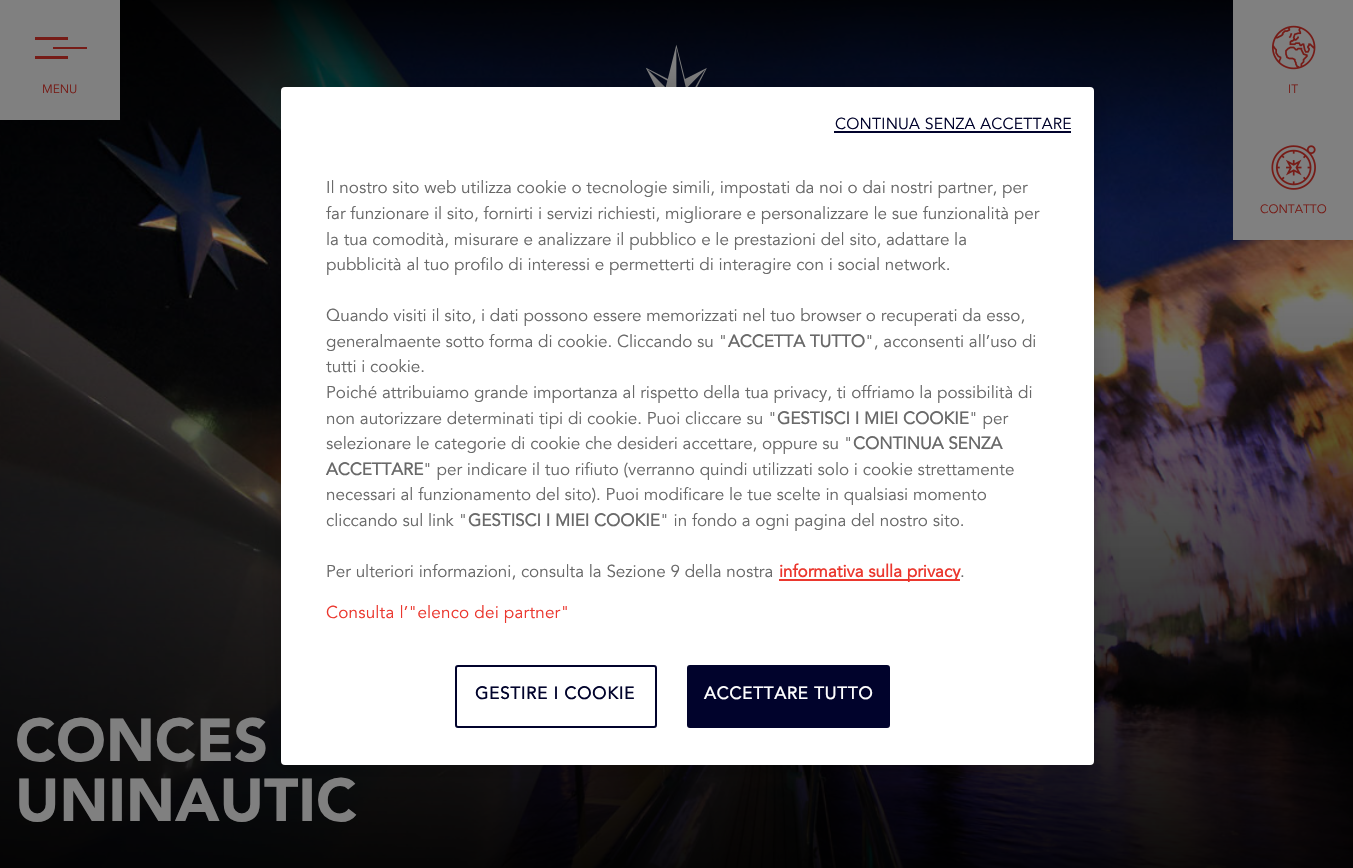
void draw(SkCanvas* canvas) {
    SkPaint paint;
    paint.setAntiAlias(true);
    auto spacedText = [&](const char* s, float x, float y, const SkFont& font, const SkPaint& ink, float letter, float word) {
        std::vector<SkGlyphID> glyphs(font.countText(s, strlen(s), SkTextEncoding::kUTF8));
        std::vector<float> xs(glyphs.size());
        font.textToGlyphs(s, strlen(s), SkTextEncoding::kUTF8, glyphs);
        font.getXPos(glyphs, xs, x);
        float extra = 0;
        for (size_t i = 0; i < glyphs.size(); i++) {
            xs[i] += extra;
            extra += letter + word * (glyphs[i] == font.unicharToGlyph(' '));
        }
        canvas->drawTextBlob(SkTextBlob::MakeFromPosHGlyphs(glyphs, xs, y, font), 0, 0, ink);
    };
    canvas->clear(0xFFFFFFFF);
    canvas->drawImageRect(SkImages::DeferredFromEncodedData(SkData::MakeFromFileName("img4.png")), SkRect::MakeXYWH(0, 0, 1353, 868), SkSamplingOptions());
    canvas->drawImageRect(SkImages::DeferredFromEncodedData(SkData::MakeFromFileName("img1.png")), SkRect::MakeXYWH(645, 44, 62, 43), SkSamplingOptions());
    paint.setColor(0xFF808080);
    canvas->drawRect(SkRect::MakeXYWH(0, 0, 120, 120), paint);
    paint.setColor(0xFF761C17);
    canvas->drawPath(SkPathBuilder().moveTo(35, 37).lineTo(68, 37).lineTo(68, 40).lineTo(35, 40).close().moveTo(53, 47).lineTo(87, 47).lineTo(87, 49).lineTo(53, 49).close().moveTo(35, 56).lineTo(68, 56).lineTo(68, 59).lineTo(35, 59).close().detach(), paint);
    SkFont font1(fontMgr->matchFamilyStyle("Avenir", SkFontStyle::Normal()), 12);
    font1.setSubpixel(true);
    canvas->drawString("MENU", 42, 93, font1, paint);
    paint.setColor(0xFF808080);
    canvas->drawRect(SkRect::MakeXYWH(1233, 0, 120, 240), paint);
    canvas->drawImageRect(SkImages::DeferredFromEncodedData(SkData::MakeFromFileName("img2.png")), SkRect::MakeXYWH(1271, 25, 45, 45), SkSamplingOptions());
    paint.setColor(0xFF761C17);
    canvas->drawString("IT", 1288, 93, font1, paint);
    canvas->drawImageRect(SkImages::DeferredFromEncodedData(SkData::MakeFromFileName("img3.png")), SkRect::MakeXYWH(1271, 145, 45, 45), SkSamplingOptions());
    canvas->drawString("CONTATTO", 1260, 213, font1, paint);
    paint.setColor(0x33000000);
    paint.setMaskFilter(SkMaskFilter::MakeBlur(kNormal_SkBlurStyle, 13.5f));
    canvas->drawRoundRect(SkRect::MakeXYWH(281, 87, 813, 678), 4, 4, paint);
    paint.setMaskFilter(nullptr);
    paint.setColor(0xFFFFFFFF);
    canvas->drawRoundRect(SkRect::MakeXYWH(281, 87, 813, 678), 4, 4, paint);
    SkFont font2(fontMgr->matchFamilyStyle("Avenir", SkFontStyle::Normal()), 15.75f);
    font2.setSubpixel(true);
    paint.setColor(0xFF01032C);
    spacedText("CONTINUA SENZA ACCETTARE", 835, 129, font2, paint, 0.2f, 0);
    canvas->drawRect(SkRect::MakeXYWH(834, 131, 237, 2), paint);
    SkFont font3(fontMgr->matchFamilyStyle("Avenir", SkFontStyle::Normal()), 17.05f);
    font3.setSubpixel(true);
    paint.setColor(0xFF696969);
    canvas->drawString("Il nostro sito web utilizza cookie o tecnologie simili, impostati da noi o dai nostri partner, per", 326, 193, font3, paint);
    canvas->drawString("far funzionare il sito, fornirti i servizi richiesti, migliorare e personalizzare le sue funzionalità per", 326, 219, font3, paint);
    canvas->drawString("la tua comodità, misurare e analizzare il pubblico e le prestazioni del sito, adattare la", 326, 245, font3, paint);
    canvas->drawString("pubblicità al tuo profilo di interessi e permetterti di interagire con i social network.", 326, 270, font3, paint);
    canvas->drawString("Quando visiti il sito, i dati possono essere memorizzati nel tuo browser o recuperati da esso,", 326, 321, font3, paint);
    canvas->drawString("generalmaente sotto forma di cookie. Cliccando su \"", 326, 347, font3, paint);
    SkFont font4(fontMgr->matchFamilyStyle("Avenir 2", SkFontStyle::Bold()), 17.05f);
    font4.setSubpixel(true);
    canvas->drawString("ACCETTA TUTTO", 728, 347, font4, paint);
    canvas->drawString("\", acconsenti all’uso di", 865, 347, font3, paint);
    canvas->drawString("tutti i cookie.", 326, 372, font3, paint);
    canvas->drawString("Poiché attribuiamo grande importanza al rispetto della tua privacy, ti offriamo la possibilità di", 326, 398, font3, paint);
    canvas->drawString("non autorizzare determinati tipi di cookie. Puoi cliccare su \"", 326, 424, font3, paint);
    canvas->drawString("GESTISCI I MIEI COOKIE", 777, 424, font4, paint);
    canvas->drawString("\" per", 969, 424, font3, paint);
    canvas->drawString("selezionare le categorie di cookie che desideri accettare, oppure su \"", 326, 449, font3, paint);
    canvas->drawString("CONTINUA SENZA", 853, 449, font4, paint);
    canvas->drawString("ACCETTARE", 326, 475, font4, paint);
    canvas->drawString("\" per indicare il tuo rifiuto (verranno quindi utilizzati solo i cookie strettamente", 423, 475, font3, paint);
    canvas->drawString("necessari al funzionamento del sito). Puoi modificare le tue scelte in qualsiasi momento", 326, 500, font3, paint);
    canvas->drawString("cliccando sul link \"", 326, 526, font3, paint);
    canvas->drawString("GESTISCI I MIEI COOKIE", 468, 526, font4, paint);
    canvas->drawString("\" in fondo a ogni pagina del nostro sito.", 660, 526, font3, paint);
    canvas->drawString("Per ulteriori informazioni, consulta la Sezione 9 della nostra", 326, 577, font3, paint);
    paint.setColor(0xFFEB372E);
    canvas->drawRect(SkRect::MakeXYWH(779, 579, 181, 2), paint);
    canvas->drawString("informativa sulla privacy", 779, 577, font4, paint);
    paint.setColor(0xFF696969);
    canvas->drawString(".", 960, 577, font3, paint);
    paint.setColor(0xFFEB372E);
    spacedText("Consulta l’\"elenco dei partner\"", 326, 618, font3, paint, 0.2f, 0);
    paint.setStyle(SkPaint::kStroke_Style);
    paint.setStrokeWidth(2);
    paint.setColor(0xFF01032C);
    canvas->drawRoundRect(SkRect::MakeXYWH(456, 666, 200, 61), 2, 2, paint);
    paint.setStyle(SkPaint::kFill_Style);
    spacedText("GESTIRE I COOKIE", 475, 699, font4, paint, 0.8f, 0);
    canvas->drawRoundRect(SkRect::MakeXYWH(688, 666, 201, 61), 2, 2, paint);
    paint.setStyle(SkPaint::kStroke_Style);
    canvas->drawRoundRect(SkRect::MakeXYWH(688, 666, 201, 61), 2, 2, paint);
    paint.setStyle(SkPaint::kFill_Style);
    paint.setColor(0xFFFFFFFF);
    spacedText("ACCETTARE TUTTO", 704, 699, font4, paint, 0.8f, 0);
    SkFont font5(fontMgr->matchFamilyStyle("Avenir", SkFontStyle::Bold()), 60);
    font5.setSubpixel(true);
    paint.setColor(0xFF808080);
    canvas->drawString("CONCES", 15, 761, font5, paint);
    canvas->drawString("UNINAUTIC", 15, 821, font5, paint);
}
